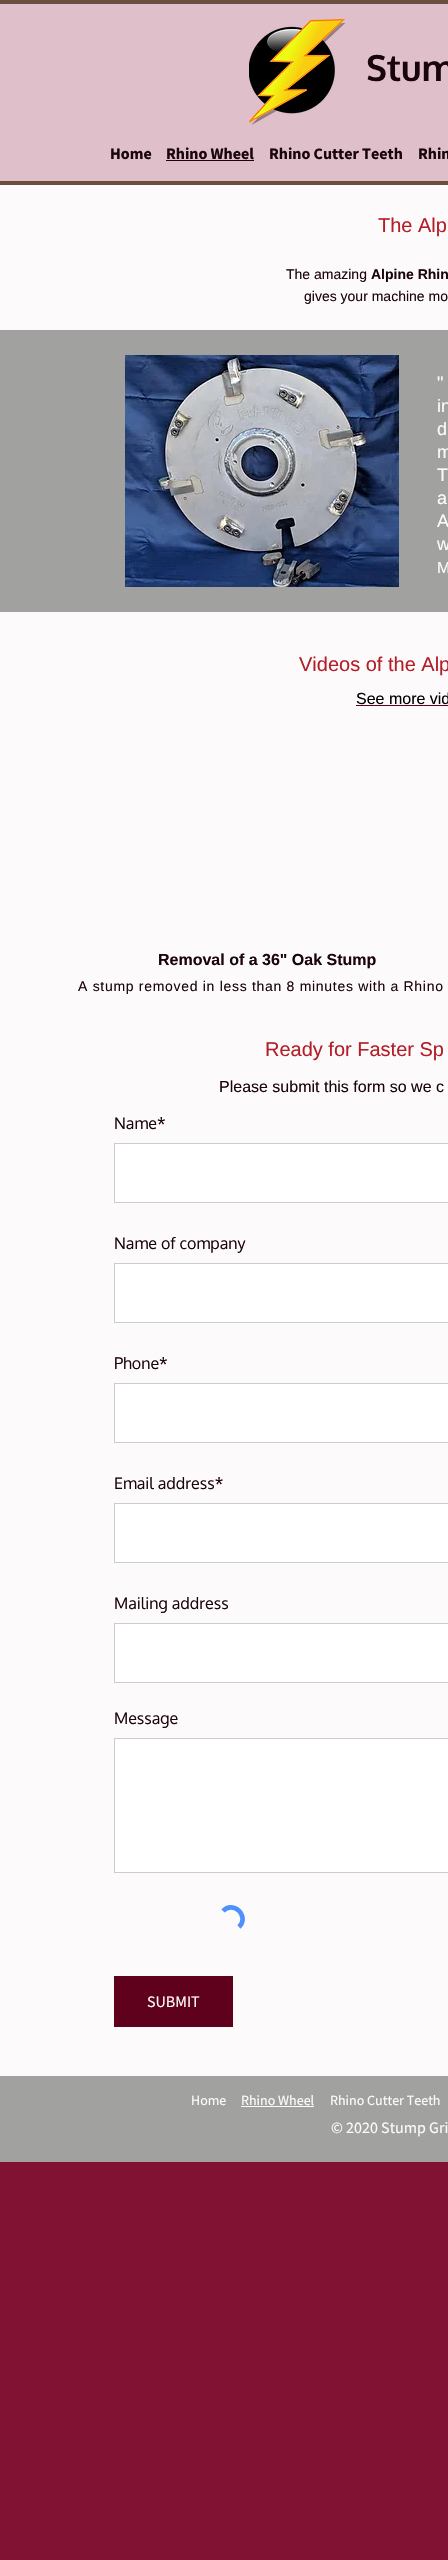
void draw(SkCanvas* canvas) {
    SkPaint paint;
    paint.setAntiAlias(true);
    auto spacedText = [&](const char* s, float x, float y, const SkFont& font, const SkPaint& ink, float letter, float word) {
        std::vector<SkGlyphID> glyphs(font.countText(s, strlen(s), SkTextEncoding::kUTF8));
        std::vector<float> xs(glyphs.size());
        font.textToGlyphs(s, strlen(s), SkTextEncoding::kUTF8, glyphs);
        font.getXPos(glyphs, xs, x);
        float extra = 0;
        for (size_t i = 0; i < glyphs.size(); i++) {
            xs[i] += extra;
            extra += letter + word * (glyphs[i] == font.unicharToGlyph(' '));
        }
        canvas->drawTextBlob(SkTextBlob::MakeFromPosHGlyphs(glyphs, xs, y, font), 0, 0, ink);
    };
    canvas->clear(0xFF821234);
    paint.setColor(0xFFDFC0CA);
    canvas->drawRect(SkRect::MakeXYWH(-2, 2, 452, 181), paint);
    paint.setStyle(SkPaint::kStroke_Style);
    paint.setStrokeWidth(4);
    paint.setColor(0xFF6A4F3E);
    canvas->drawRect(SkRect::MakeXYWH(-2, 2, 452, 181), paint);
    canvas->drawImageRect(SkImages::DeferredFromEncodedData(SkData::MakeFromFileName("img1.png")), SkRect::MakeXYWH(249, 19, 96, 106), SkSamplingOptions());
    SkFont font1(fontMgr->matchFamilyStyle("Oxygen", SkFontStyle::Bold()), 36);
    font1.setSubpixel(true);
    paint.setStyle(SkPaint::kFill_Style);
    paint.setColor(0xFF1B050C);
    canvas->drawString("Stum", 366, 81, font1, paint);
    SkFont font2(fontMgr->matchFamilyStyle("Source Sans Pro", SkFontStyle::Bold()), 16);
    font2.setSubpixel(true);
    canvas->drawString("Home", 110, 159, font2, paint);
    canvas->drawString("Rhino Wheel", 166, 159, font2, paint);
    canvas->drawRect(SkRect::MakeXYWH(166, 160, 88, 1), paint);
    canvas->drawString("Rhino Cutter Teeth", 269, 159, font2, paint);
    canvas->drawString("Rhin", 418, 159, font2, paint);
    paint.setColor(0xFFFDFAFB);
    canvas->drawRect(SkRect::MakeXYWH(0, 185, 448, 145), paint);
    SkFont font3(fontMgr->matchFamilyStyle("Liberation Sans", SkFontStyle::Normal()), 20);
    font3.setSubpixel(true);
    paint.setColor(0xFFB31F28);
    canvas->drawString("The Alp", 378, 232, font3, paint);
    SkFont font4(fontMgr->matchFamilyStyle("Liberation Sans", SkFontStyle::Normal()), 14);
    font4.setSubpixel(true);
    paint.setColor(0xFF1B050C);
    canvas->drawString("The amazing", 286, 279, font4, paint);
    SkFont font5(fontMgr->matchFamilyStyle("Liberation Sans", SkFontStyle::Bold()), 14);
    font5.setSubpixel(true);
    canvas->drawString("Alpine Rhin", 371, 279, font5, paint);
    canvas->drawString("gives your machine mo", 304, 301, font4, paint);
    paint.setColor(0xFFA1A1A0);
    canvas->drawRect(SkRect::MakeXYWH(0, 330, 448, 282), paint);
    canvas->drawImageRect(SkImages::DeferredFromEncodedData(SkData::MakeFromFileName("img2.png")), SkRect::MakeXYWH(125, 355, 274, 232), SkSamplingOptions());
    SkFont font6(fontMgr->matchFamilyStyle("Liberation Sans", SkFontStyle::Normal()), 18);
    font6.setSubpixel(true);
    paint.setColor(0xFFFDFAFB);
    canvas->drawString("\"", 437, 389, font6, paint);
    canvas->drawString("in", 437, 412, font6, paint);
    canvas->drawString("d", 437, 435, font6, paint);
    canvas->drawString("m", 437, 458, font6, paint);
    canvas->drawString("T", 437, 481, font6, paint);
    canvas->drawString("a", 437, 504, font6, paint);
    canvas->drawString("A", 437, 527, font6, paint);
    canvas->drawString("w", 437, 550, font6, paint);
    SkFont font7(fontMgr->matchFamilyStyle("Liberation Sans", SkFontStyle::Normal()), 16);
    font7.setSubpixel(true);
    canvas->drawString("M", 437, 573, font7, paint);
    canvas->drawRect(SkRect::MakeXYWH(0, 612, 448, 1464), paint);
    paint.setColor(0xFFB31F28);
    canvas->drawString("Videos of the Alp", 299, 671, font3, paint);
    paint.setColor(0xFF000000);
    canvas->drawString("See more vid", 356, 704, font7, paint);
    paint.setColor(0xFF5F001D);
    canvas->drawRect(SkRect::MakeXYWH(356, 705, 92, 1), paint);
    SkFont font8(fontMgr->matchFamilyStyle("Liberation Sans", SkFontStyle::Bold()), 16);
    font8.setSubpixel(true);
    paint.setColor(0xFF1B050C);
    canvas->drawString("Removal of a 36\" Oak Stump", 158, 965, font8, paint);
    spacedText("A stump removed in less than 8 minutes with a Rhino", 78, 991, font4, paint, 0.7f, 0);
    paint.setColor(0xFFB31F28);
    canvas->drawString("Ready for Faster Sp", 265, 1056, font3, paint);
    paint.setColor(0xFF1B050C);
    canvas->drawString("Please submit this form so we c", 219, 1092, font7, paint);
    SkFont font9(fontMgr->matchFamilyStyle("Oxygen", SkFontStyle::Normal()), 16);
    font9.setSubpixel(true);
    canvas->drawString("Name*", 114, 1129, font9, paint);
    paint.setColor(0xFFFFFFFF);
    canvas->drawRect(SkRect::MakeXYWH(114.5f, 1143.5f, 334, 59), paint);
    paint.setStyle(SkPaint::kStroke_Style);
    paint.setStrokeWidth(1);
    paint.setColor(0xFFCCCCCC);
    canvas->drawRect(SkRect::MakeXYWH(114.5f, 1143.5f, 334, 59), paint);
    paint.setStyle(SkPaint::kFill_Style);
    paint.setColor(0xFF1B050C);
    canvas->drawString("Name of company", 114, 1249, font9, paint);
    paint.setColor(0xFFFFFFFF);
    canvas->drawRect(SkRect::MakeXYWH(114.5f, 1263.5f, 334, 59), paint);
    paint.setStyle(SkPaint::kStroke_Style);
    paint.setColor(0xFFCCCCCC);
    canvas->drawRect(SkRect::MakeXYWH(114.5f, 1263.5f, 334, 59), paint);
    paint.setStyle(SkPaint::kFill_Style);
    paint.setColor(0xFF1B050C);
    canvas->drawString("Phone*", 114, 1369, font9, paint);
    paint.setColor(0xFFFFFFFF);
    canvas->drawRect(SkRect::MakeXYWH(114.5f, 1383.5f, 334, 59), paint);
    paint.setStyle(SkPaint::kStroke_Style);
    paint.setColor(0xFFCCCCCC);
    canvas->drawRect(SkRect::MakeXYWH(114.5f, 1383.5f, 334, 59), paint);
    paint.setStyle(SkPaint::kFill_Style);
    paint.setColor(0xFF1B050C);
    canvas->drawString("Email address*", 114, 1489, font9, paint);
    paint.setColor(0xFFFFFFFF);
    canvas->drawRect(SkRect::MakeXYWH(114.5f, 1503.5f, 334, 59), paint);
    paint.setStyle(SkPaint::kStroke_Style);
    paint.setColor(0xFFCCCCCC);
    canvas->drawRect(SkRect::MakeXYWH(114.5f, 1503.5f, 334, 59), paint);
    paint.setStyle(SkPaint::kFill_Style);
    paint.setColor(0xFF1B050C);
    canvas->drawString("Mailing address", 114, 1609, font9, paint);
    paint.setColor(0xFFFFFFFF);
    canvas->drawRect(SkRect::MakeXYWH(114.5f, 1623.5f, 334, 59), paint);
    paint.setStyle(SkPaint::kStroke_Style);
    paint.setColor(0xFFCCCCCC);
    canvas->drawRect(SkRect::MakeXYWH(114.5f, 1623.5f, 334, 59), paint);
    paint.setStyle(SkPaint::kFill_Style);
    paint.setColor(0xFF1B050C);
    canvas->drawString("Message", 114, 1724, font9, paint);
    paint.setColor(0xFFFFFFFF);
    canvas->drawRect(SkRect::MakeXYWH(114.5f, 1738.5f, 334, 134), paint);
    paint.setStyle(SkPaint::kStroke_Style);
    paint.setColor(0xFFCCCCCC);
    canvas->drawRect(SkRect::MakeXYWH(114.5f, 1738.5f, 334, 134), paint);
    paint.setStrokeWidth(4.6f);
    paint.setColor(0xFF4D90FE);
    canvas->drawPath(SkPathBuilder().moveTo(223, 1911).cubicTo(233.5f, 1900, 250, 1916.5f, 239, 1927).detach(), paint);
    paint.setStyle(SkPaint::kFill_Style);
    paint.setColor(0xFF5F001D);
    canvas->drawRect(SkRect::MakeXYWH(114, 1976, 119, 51), paint);
    SkFont font10(fontMgr->matchFamilyStyle("Source Sans Pro", SkFontStyle::Normal()), 16);
    font10.setSubpixel(true);
    paint.setColor(0xFFFDFAFB);
    canvas->drawString("SUBMIT", 147, 2007, font10, paint);
    paint.setColor(0xFFA1A1A0);
    canvas->drawRect(SkRect::MakeXYWH(0, 2076, 448, 86), paint);
    SkFont font11(fontMgr->matchFamilyStyle("Source Sans Pro", SkFontStyle::Normal()), 14);
    font11.setSubpixel(true);
    paint.setColor(0xFFFDFAFB);
    canvas->drawString("Home", 191, 2105, font11, paint);
    canvas->drawString("Rhino Wheel", 241, 2105, font11, paint);
    canvas->drawRect(SkRect::MakeXYWH(241, 2106, 73, 1), paint);
    canvas->drawString("Rhino Cutter Teeth", 330, 2105, font11, paint);
    canvas->drawString("© 2020 Stump Gri", 331, 2133, font10, paint);
}
